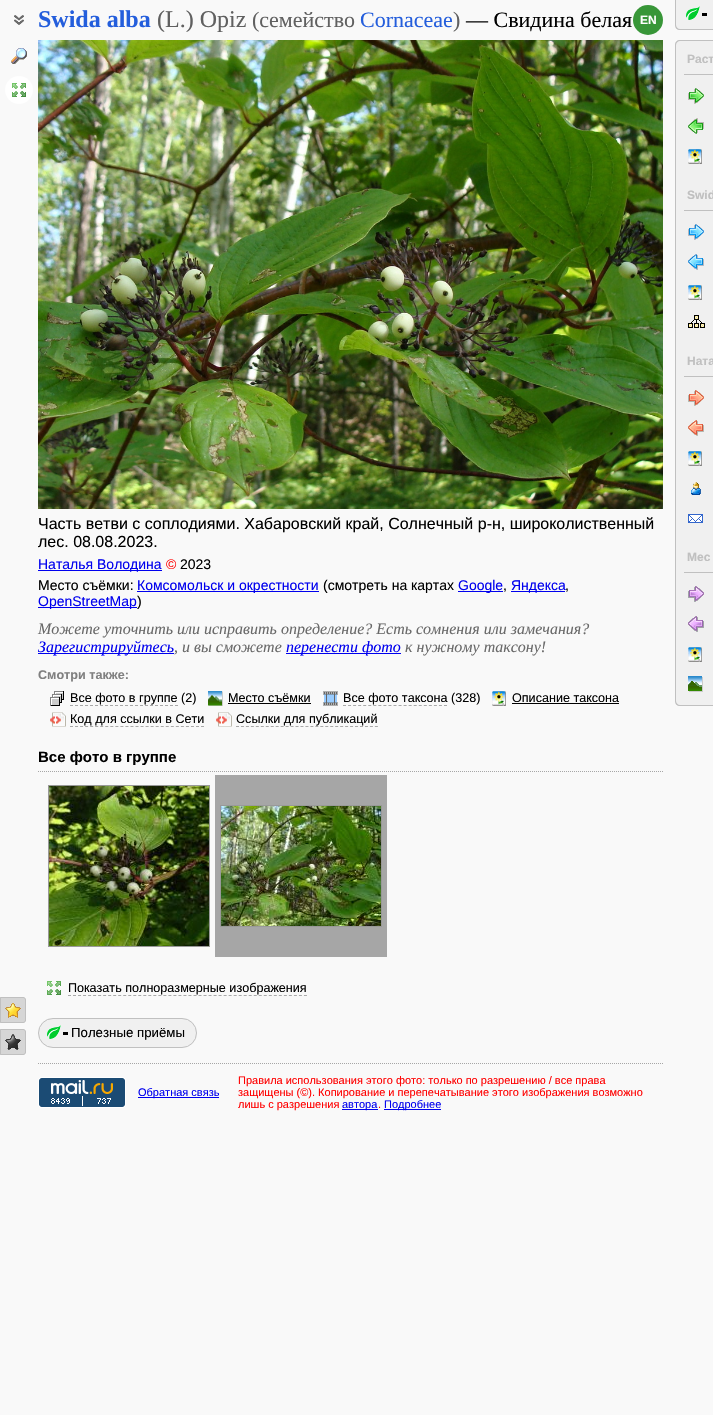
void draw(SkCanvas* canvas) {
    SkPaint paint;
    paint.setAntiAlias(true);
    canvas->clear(0xFFF9F9F9);
    canvas->drawImageRect(SkImages::DeferredFromEncodedData(SkData::MakeFromFileName("img1.png")), SkRect::MakeXYWH(14, 15, 10, 10), SkSamplingOptions());
    SkFont font1(fontMgr->matchFamilyStyle("Liberation Serif", SkFontStyle::Bold()), 24);
    font1.setSubpixel(true);
    paint.setColor(0xFF245EDC);
    canvas->drawString("Swida alba", 38, 27, font1, paint);
    SkFont font2(fontMgr->matchFamilyStyle("Liberation Serif", SkFontStyle::Normal()), 24);
    font2.setSubpixel(true);
    paint.setColor(0xFF606060);
    canvas->drawString("(L.) Opiz", 157, 27, font2, paint);
    SkFont font3(fontMgr->matchFamilyStyle("Liberation Serif", SkFontStyle::Normal()), 22);
    font3.setSubpixel(true);
    canvas->drawString("(семейство", 252, 27, font3, paint);
    paint.setColor(0xFF245EDC);
    canvas->drawString("Cornaceae", 360, 27, font3, paint);
    paint.setColor(0xFF606060);
    canvas->drawString(")", 453, 27, font3, paint);
    paint.setColor(0xFF000000);
    canvas->drawString("— Свидина белая", 466, 27, font3, paint);
    paint.setColor(0xFF389638);
    canvas->drawCircle(648, 20, 15, paint);
    SkFont font4(fontMgr->matchFamilyStyle("Liberation Sans", SkFontStyle::Bold()), 12);
    font4.setSubpixel(true);
    paint.setColor(0xFFFEFEFE);
    canvas->drawString("EN", 640, 24, font4, paint);
    canvas->drawImageRect(SkImages::DeferredFromEncodedData(SkData::MakeFromFileName("img2.png")), SkRect::MakeXYWH(11, 48, 16, 16), SkSamplingOptions());
    paint.setColor(0xFFFFFFFF);
    canvas->drawCircle(19, 90, 14, paint);
    canvas->drawImageRect(SkImages::DeferredFromEncodedData(SkData::MakeFromFileName("img3.png")), SkRect::MakeXYWH(12, 83, 14, 14), SkSamplingOptions());
    paint.setColor(0xFFD6D6D6);
    canvas->drawPath(SkPathBuilder().moveTo(0, 997).lineTo(23, 997).cubicTo(24.5f, 997, 26, 998.5f, 26, 1000).lineTo(26, 1020).cubicTo(26, 1021.5f, 24.5f, 1023, 23, 1023).lineTo(0, 1023).close().detach(), paint);
    canvas->drawImageRect(SkImages::DeferredFromEncodedData(SkData::MakeFromFileName("img4.png")), SkRect::MakeXYWH(5, 1003, 16, 15), SkSamplingOptions());
    paint.setStyle(SkPaint::kStroke_Style);
    paint.setStrokeWidth(1);
    paint.setColor(0xFFC0C0C0);
    canvas->drawPath(SkPathBuilder().moveTo(0.5f, 997.5f).lineTo(23, 997.5f).cubicTo(24.5f, 997.5f, 25.5f, 998.5f, 25.5f, 1000).lineTo(25.5f, 1020).cubicTo(25.5f, 1021.5f, 24.5f, 1022.5f, 23, 1022.5f).lineTo(0.5f, 1022.5f).close().detach(), paint);
    paint.setStyle(SkPaint::kFill_Style);
    paint.setColor(0xFFD6D6D6);
    canvas->drawPath(SkPathBuilder().moveTo(0, 1029).lineTo(23, 1029).cubicTo(24.5f, 1029, 26, 1030.5f, 26, 1032).lineTo(26, 1052).cubicTo(26, 1053.5f, 24.5f, 1055, 23, 1055).lineTo(0, 1055).close().detach(), paint);
    canvas->drawImageRect(SkImages::DeferredFromEncodedData(SkData::MakeFromFileName("img5.png")), SkRect::MakeXYWH(5, 1034, 16, 16), SkSamplingOptions());
    paint.setStyle(SkPaint::kStroke_Style);
    paint.setColor(0xFFC0C0C0);
    canvas->drawPath(SkPathBuilder().moveTo(0.5f, 1029.5f).lineTo(23, 1029.5f).cubicTo(24.5f, 1029.5f, 25.5f, 1030.5f, 25.5f, 1032).lineTo(25.5f, 1052).cubicTo(25.5f, 1053.5f, 24.5f, 1054.5f, 23, 1054.5f).lineTo(0.5f, 1054.5f).close().detach(), paint);
    paint.setStyle(SkPaint::kFill_Style);
    paint.setColor(0xFFF0F0F0);
    canvas->drawPath(SkPathBuilder().moveTo(675, 0).lineTo(713, 0).lineTo(713, 30).lineTo(680, 30).cubicTo(677, 30, 675, 28, 675, 25).close().detach(), paint);
    canvas->drawImageRect(SkImages::DeferredFromEncodedData(SkData::MakeFromFileName("img6.png")), SkRect::MakeXYWH(686, 6, 14, 14), SkSamplingOptions());
    paint.setColor(0xFFC0C0C0);
    canvas->drawPath(SkPathBuilder(SkPathFillType::kEvenOdd).moveTo(675, 0).lineTo(713, 0).lineTo(713, 30).lineTo(680, 30).cubicTo(677, 30, 675, 28, 675, 25).close().moveTo(676, 0).lineTo(713, 0).lineTo(713, 29).lineTo(680, 29).cubicTo(678, 29, 676, 27, 676, 25).close().detach(), paint);
    paint.setColor(0xFF000000);
    canvas->drawRect(SkRect::MakeXYWH(702, 13, 5, 3), paint);
    paint.setColor(0xFFF0F0F0);
    canvas->drawPath(SkPathBuilder().moveTo(680, 40).lineTo(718, 40).lineTo(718, 706).lineTo(680, 706).cubicTo(677, 706, 675, 704, 675, 701).lineTo(675, 45).cubicTo(675, 42, 677, 40, 680, 40).close().detach(), paint);
    paint.setColor(0xFFC0C0C0);
    canvas->drawPath(SkPathBuilder(SkPathFillType::kEvenOdd).moveTo(680, 40).lineTo(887, 40).lineTo(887, 706).lineTo(680, 706).cubicTo(677, 706, 675, 704, 675, 701).lineTo(675, 45).cubicTo(675, 42, 677, 40, 680, 40).close().moveTo(680, 41).lineTo(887, 41).lineTo(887, 705).lineTo(680, 705).cubicTo(678, 705, 676, 703, 676, 701).lineTo(676, 45).cubicTo(676, 43, 678, 41, 680, 41).close().detach(), paint);
    canvas->drawRect(SkRect::MakeXYWH(684, 74, 29, 1), paint);
    canvas->drawString("Раст", 687, 63, font4, paint);
    canvas->drawImageRect(SkImages::DeferredFromEncodedData(SkData::MakeFromFileName("img7.png")), SkRect::MakeXYWH(688, 88, 16, 16), SkSamplingOptions());
    canvas->drawImageRect(SkImages::DeferredFromEncodedData(SkData::MakeFromFileName("img8.png")), SkRect::MakeXYWH(688, 118, 16, 16), SkSamplingOptions());
    canvas->drawImageRect(SkImages::DeferredFromEncodedData(SkData::MakeFromFileName("img9.png")), SkRect::MakeXYWH(688, 149, 14, 15), SkSamplingOptions());
    canvas->drawRect(SkRect::MakeXYWH(684, 210, 29, 1), paint);
    canvas->drawString("Swid", 687, 199, font4, paint);
    canvas->drawImageRect(SkImages::DeferredFromEncodedData(SkData::MakeFromFileName("img10.png")), SkRect::MakeXYWH(688, 224, 16, 16), SkSamplingOptions());
    canvas->drawImageRect(SkImages::DeferredFromEncodedData(SkData::MakeFromFileName("img11.png")), SkRect::MakeXYWH(688, 254, 16, 16), SkSamplingOptions());
    canvas->drawImageRect(SkImages::DeferredFromEncodedData(SkData::MakeFromFileName("img9.png")), SkRect::MakeXYWH(688, 285, 14, 15), SkSamplingOptions());
    canvas->drawImageRect(SkImages::DeferredFromEncodedData(SkData::MakeFromFileName("img12.png")), SkRect::MakeXYWH(688, 315, 17, 13), SkSamplingOptions());
    canvas->drawRect(SkRect::MakeXYWH(684, 376, 29, 1), paint);
    canvas->drawString("Ната", 687, 365, font4, paint);
    canvas->drawImageRect(SkImages::DeferredFromEncodedData(SkData::MakeFromFileName("img13.png")), SkRect::MakeXYWH(688, 390, 16, 16), SkSamplingOptions());
    canvas->drawImageRect(SkImages::DeferredFromEncodedData(SkData::MakeFromFileName("img14.png")), SkRect::MakeXYWH(688, 420, 16, 16), SkSamplingOptions());
    canvas->drawImageRect(SkImages::DeferredFromEncodedData(SkData::MakeFromFileName("img9.png")), SkRect::MakeXYWH(688, 451, 14, 15), SkSamplingOptions());
    canvas->drawImageRect(SkImages::DeferredFromEncodedData(SkData::MakeFromFileName("img15.png")), SkRect::MakeXYWH(691, 482, 10, 13), SkSamplingOptions());
    canvas->drawImageRect(SkImages::DeferredFromEncodedData(SkData::MakeFromFileName("img16.png")), SkRect::MakeXYWH(688, 514, 15, 9), SkSamplingOptions());
    canvas->drawRect(SkRect::MakeXYWH(684, 572, 29, 1), paint);
    canvas->drawString("Мес", 687, 561, font4, paint);
    canvas->drawImageRect(SkImages::DeferredFromEncodedData(SkData::MakeFromFileName("img17.png")), SkRect::MakeXYWH(688, 586, 16, 16), SkSamplingOptions());
    canvas->drawImageRect(SkImages::DeferredFromEncodedData(SkData::MakeFromFileName("img18.png")), SkRect::MakeXYWH(688, 616, 16, 16), SkSamplingOptions());
    canvas->drawImageRect(SkImages::DeferredFromEncodedData(SkData::MakeFromFileName("img9.png")), SkRect::MakeXYWH(688, 647, 14, 15), SkSamplingOptions());
    canvas->drawImageRect(SkImages::DeferredFromEncodedData(SkData::MakeFromFileName("img19.png")), SkRect::MakeXYWH(688, 676, 15, 16), SkSamplingOptions());
    canvas->drawImageRect(SkImages::DeferredFromEncodedData(SkData::MakeFromFileName("img20.png")), SkRect::MakeXYWH(38, 40, 625, 469), SkSamplingOptions());
    SkFont font5(fontMgr->matchFamilyStyle("Liberation Sans", SkFontStyle::Normal()), 16);
    font5.setSubpixel(true);
    paint.setColor(0xFF000000);
    canvas->drawString("Часть ветви с соплодиями. Хабаровский край, Солнечный р-н, широколиственный", 38, 529, font5, paint);
    canvas->drawString("лес. 08.08.2023.", 38, 547, font5, paint);
    paint.setColor(0xFF0000EE);
    canvas->drawRect(SkRect::MakeXYWH(38, 570, 124, 1), paint);
    SkFont font6(fontMgr->matchFamilyStyle("Liberation Sans", SkFontStyle::Normal()), 14);
    font6.setSubpixel(true);
    canvas->drawString("Наталья Володина", 38, 569, font6, paint);
    paint.setColor(0xFFFF0000);
    canvas->drawString("©", 166, 569, font6, paint);
    paint.setColor(0xFF000000);
    canvas->drawString("2023", 180, 569, font6, paint);
    canvas->drawString("Место съёмки:", 38, 590, font6, paint);
    paint.setColor(0xFF0000EE);
    canvas->drawRect(SkRect::MakeXYWH(137, 591, 182, 1), paint);
    canvas->drawString("Комсомольск и окрестности", 137, 590, font6, paint);
    paint.setColor(0xFF000000);
    canvas->drawString("(смотреть на картах", 323, 590, font6, paint);
    paint.setColor(0xFF0000EE);
    canvas->drawRect(SkRect::MakeXYWH(458, 591, 45, 1), paint);
    canvas->drawString("Google", 458, 590, font6, paint);
    paint.setColor(0xFF000000);
    canvas->drawString(",", 503, 590, font6, paint);
    paint.setColor(0xFF0000EE);
    canvas->drawRect(SkRect::MakeXYWH(511, 591, 54, 1), paint);
    canvas->drawString("Яндекса", 511, 590, font6, paint);
    paint.setColor(0xFF000000);
    canvas->drawString(",", 565, 590, font6, paint);
    paint.setColor(0xFF0000EE);
    canvas->drawRect(SkRect::MakeXYWH(38, 607, 99, 1), paint);
    canvas->drawString("OpenStreetMap", 38, 606, font6, paint);
    paint.setColor(0xFF000000);
    canvas->drawString(")", 137, 606, font6, paint);
    SkFont font7(fontMgr->matchFamilyStyle("Liberation Serif", SkFontStyle::Italic()), 16);
    font7.setSubpixel(true);
    paint.setColor(0xFF696969);
    canvas->drawString("Можете уточнить или исправить определение? Есть сомнения или замечания?", 38, 634, font7, paint);
    paint.setColor(0xFF0000EE);
    canvas->drawRect(SkRect::MakeXYWH(38, 653, 136, 1), paint);
    canvas->drawString("Зарегистрируйтесь", 38, 652, font7, paint);
    paint.setColor(0xFF696969);
    canvas->drawString(", и вы сможете", 174, 652, font7, paint);
    paint.setColor(0xFF0000EE);
    canvas->drawRect(SkRect::MakeXYWH(286, 653, 115, 1), paint);
    canvas->drawString("перенести фото", 286, 652, font7, paint);
    paint.setColor(0xFF696969);
    canvas->drawString("к нужному таксону!", 405, 652, font7, paint);
    SkFont font8(fontMgr->matchFamilyStyle("Liberation Sans", SkFontStyle::Bold()), 12.6f);
    font8.setSubpixel(true);
    paint.setColor(0xFF808080);
    canvas->drawString("Смотри также:", 38, 679, font8, paint);
    canvas->drawImageRect(SkImages::DeferredFromEncodedData(SkData::MakeFromFileName("img21.png")), SkRect::MakeXYWH(50, 691, 14, 15), SkSamplingOptions());
    SkFont font9(fontMgr->matchFamilyStyle("Liberation Sans", SkFontStyle::Normal()), 12.6f);
    font9.setSubpixel(true);
    paint.setColor(0xFF000000);
    canvas->drawString("Все фото в группе (2)", 70, 702, font9, paint);
    paint.setStyle(SkPaint::kStroke_Style);
    paint.setColor(0xFFA9A9A9);
    paint.setPathEffect(SkDashPathEffect::Make({{3, 2}}, 0));
    canvas->drawPath(SkPathBuilder().moveTo(70, 705.5f).lineTo(178, 705.5f).detach(), paint);
    paint.setPathEffect(nullptr);
    canvas->drawImageRect(SkImages::DeferredFromEncodedData(SkData::MakeFromFileName("img22.png")), SkRect::MakeXYWH(208, 691, 15, 15), SkSamplingOptions());
    paint.setStyle(SkPaint::kFill_Style);
    paint.setColor(0xFF000000);
    canvas->drawString("Место съёмки", 228, 702, font9, paint);
    canvas->drawRect(SkRect::MakeXYWH(228, 703, 83, 1), paint);
    canvas->drawImageRect(SkImages::DeferredFromEncodedData(SkData::MakeFromFileName("img23.png")), SkRect::MakeXYWH(323, 691, 15, 15), SkSamplingOptions());
    canvas->drawString("Все фото таксона (328)", 343, 702, font9, paint);
    paint.setStyle(SkPaint::kStroke_Style);
    paint.setColor(0xFFA9A9A9);
    paint.setPathEffect(SkDashPathEffect::Make({{3, 2.05f}}, 0));
    canvas->drawPath(SkPathBuilder().moveTo(343, 705.5f).lineTo(447, 705.5f).detach(), paint);
    paint.setPathEffect(nullptr);
    canvas->drawImageRect(SkImages::DeferredFromEncodedData(SkData::MakeFromFileName("img9.png")), SkRect::MakeXYWH(492, 691, 14, 15), SkSamplingOptions());
    paint.setStyle(SkPaint::kFill_Style);
    paint.setColor(0xFF000000);
    canvas->drawString("Описание таксона", 512, 702, font9, paint);
    canvas->drawRect(SkRect::MakeXYWH(512, 703, 107, 1), paint);
    canvas->drawImageRect(SkImages::DeferredFromEncodedData(SkData::MakeFromFileName("img24.png")), SkRect::MakeXYWH(50, 712, 16, 15), SkSamplingOptions());
    canvas->drawString("Код для ссылки в Сети", 70, 723, font9, paint);
    paint.setStyle(SkPaint::kStroke_Style);
    paint.setColor(0xFFA9A9A9);
    paint.setPathEffect(SkDashPathEffect::Make({{3, 2.04f}}, 0));
    canvas->drawPath(SkPathBuilder().moveTo(70, 726.5f).lineTo(204, 726.5f).detach(), paint);
    paint.setPathEffect(nullptr);
    canvas->drawImageRect(SkImages::DeferredFromEncodedData(SkData::MakeFromFileName("img24.png")), SkRect::MakeXYWH(216, 712, 16, 15), SkSamplingOptions());
    paint.setStyle(SkPaint::kFill_Style);
    paint.setColor(0xFF000000);
    canvas->drawString("Ссылки для публикаций", 236, 723, font9, paint);
    paint.setStyle(SkPaint::kStroke_Style);
    paint.setColor(0xFFA9A9A9);
    paint.setPathEffect(SkDashPathEffect::Make({{3, 1.96f}}, 0));
    canvas->drawPath(SkPathBuilder().moveTo(236, 726.5f).lineTo(378, 726.5f).detach(), paint);
    paint.setPathEffect(nullptr);
    paint.setColor(0xFFA6A6A6);
    paint.setPathEffect(SkDashPathEffect::Make({{1, 1}}, 0));
    canvas->drawPath(SkPathBuilder().moveTo(38, 771.5f).lineTo(663, 771.5f).detach(), paint);
    paint.setPathEffect(nullptr);
    SkFont font10(fontMgr->matchFamilyStyle("Liberation Sans", SkFontStyle::Bold()), 15);
    font10.setSubpixel(true);
    paint.setStyle(SkPaint::kFill_Style);
    paint.setColor(0xFF000000);
    canvas->drawString("Все фото в группе", 38, 762, font10, paint);
    paint.setStyle(SkPaint::kStroke_Style);
    paint.setColor(0xFF999999);
    canvas->drawRect(SkRect::MakeXYWH(48.5f, 785.5f, 161, 161), paint);
    canvas->drawImageRect(SkImages::DeferredFromEncodedData(SkData::MakeFromFileName("img25.png")), SkRect::MakeXYWH(49, 786, 160, 160), SkSamplingOptions());
    paint.setStyle(SkPaint::kFill_Style);
    paint.setColor(0xFFA6A6A6);
    canvas->drawRect(SkRect::MakeXYWH(215, 775, 172, 182), paint);
    paint.setStyle(SkPaint::kStroke_Style);
    paint.setColor(0xFF999999);
    canvas->drawRect(SkRect::MakeXYWH(220.5f, 805.5f, 161, 121), paint);
    canvas->drawImageRect(SkImages::DeferredFromEncodedData(SkData::MakeFromFileName("img26.png")), SkRect::MakeXYWH(221, 806, 160, 120), SkSamplingOptions());
    canvas->drawImageRect(SkImages::DeferredFromEncodedData(SkData::MakeFromFileName("img27.png")), SkRect::MakeXYWH(47, 981, 14, 14), SkSamplingOptions());
    paint.setStyle(SkPaint::kFill_Style);
    paint.setColor(0xFF000000);
    canvas->drawString("Показать полноразмерные изображения", 68, 992, font9, paint);
    paint.setStyle(SkPaint::kStroke_Style);
    paint.setColor(0xFFA9A9A9);
    paint.setPathEffect(SkDashPathEffect::Make({{3, 2.02f}}, 0));
    canvas->drawPath(SkPathBuilder().moveTo(68, 995.5f).lineTo(307, 995.5f).detach(), paint);
    paint.setPathEffect(nullptr);
    paint.setStyle(SkPaint::kFill_Style);
    paint.setColor(0xFFF0F0F0);
    canvas->drawRoundRect(SkRect::MakeXYWH(38, 1018, 159, 30), 15, 15, paint);
    paint.setColor(0xFF000000);
    canvas->drawRect(SkRect::MakeXYWH(63, 1032, 5, 3), paint);
    paint.setStyle(SkPaint::kStroke_Style);
    paint.setColor(0xFFC0C0C0);
    canvas->drawRoundRect(SkRect::MakeXYWH(38.5f, 1018.5f, 158, 29), 14.5f, 14.5f, paint);
    canvas->drawImageRect(SkImages::DeferredFromEncodedData(SkData::MakeFromFileName("img6.png")), SkRect::MakeXYWH(47, 1025, 14, 14), SkSamplingOptions());
    SkFont font11(fontMgr->matchFamilyStyle("Liberation Sans", SkFontStyle::Normal()), 13.25f);
    font11.setSubpixel(true);
    paint.setStyle(SkPaint::kFill_Style);
    paint.setColor(0xFF000000);
    canvas->drawString("Полезные приёмы", 71, 1037, font11, paint);
    paint.setStyle(SkPaint::kStroke_Style);
    paint.setColor(0xFFA6A6A6);
    paint.setPathEffect(SkDashPathEffect::Make({{1, 1}}, 0));
    canvas->drawPath(SkPathBuilder().moveTo(38, 1063.5f).lineTo(663, 1063.5f).detach(), paint);
    paint.setPathEffect(nullptr);
    canvas->drawImageRect(SkImages::DeferredFromEncodedData(SkData::MakeFromFileName("img28.png")), SkRect::MakeXYWH(38, 1077, 88, 31), SkSamplingOptions());
    paint.setStyle(SkPaint::kFill_Style);
    paint.setColor(0xFF0000EE);
    canvas->drawRect(SkRect::MakeXYWH(138, 1097, 81, 1), paint);
    SkFont font12(fontMgr->matchFamilyStyle("Liberation Sans", SkFontStyle::Normal()), 11);
    font12.setSubpixel(true);
    canvas->drawString("Обратная связь", 138, 1096, font12, paint);
    paint.setColor(0xFFFF0000);
    canvas->drawString("Правила использования этого фото: только по разрешению / все права", 238, 1084, font12, paint);
    canvas->drawString("защищены (©). Копирование и перепечатывание этого изображения возможно", 238, 1096, font12, paint);
    canvas->drawString("лишь с разрешения", 238, 1108, font12, paint);
    paint.setColor(0xFF0000EE);
    canvas->drawRect(SkRect::MakeXYWH(342, 1109, 36, 1), paint);
    canvas->drawString("автора", 342, 1108, font12, paint);
    paint.setColor(0xFFFF0000);
    canvas->drawString(".", 378, 1108, font12, paint);
    paint.setColor(0xFF0000EE);
    canvas->drawRect(SkRect::MakeXYWH(384, 1109, 57, 1), paint);
    canvas->drawString("Подробнее", 384, 1108, font12, paint);
}
